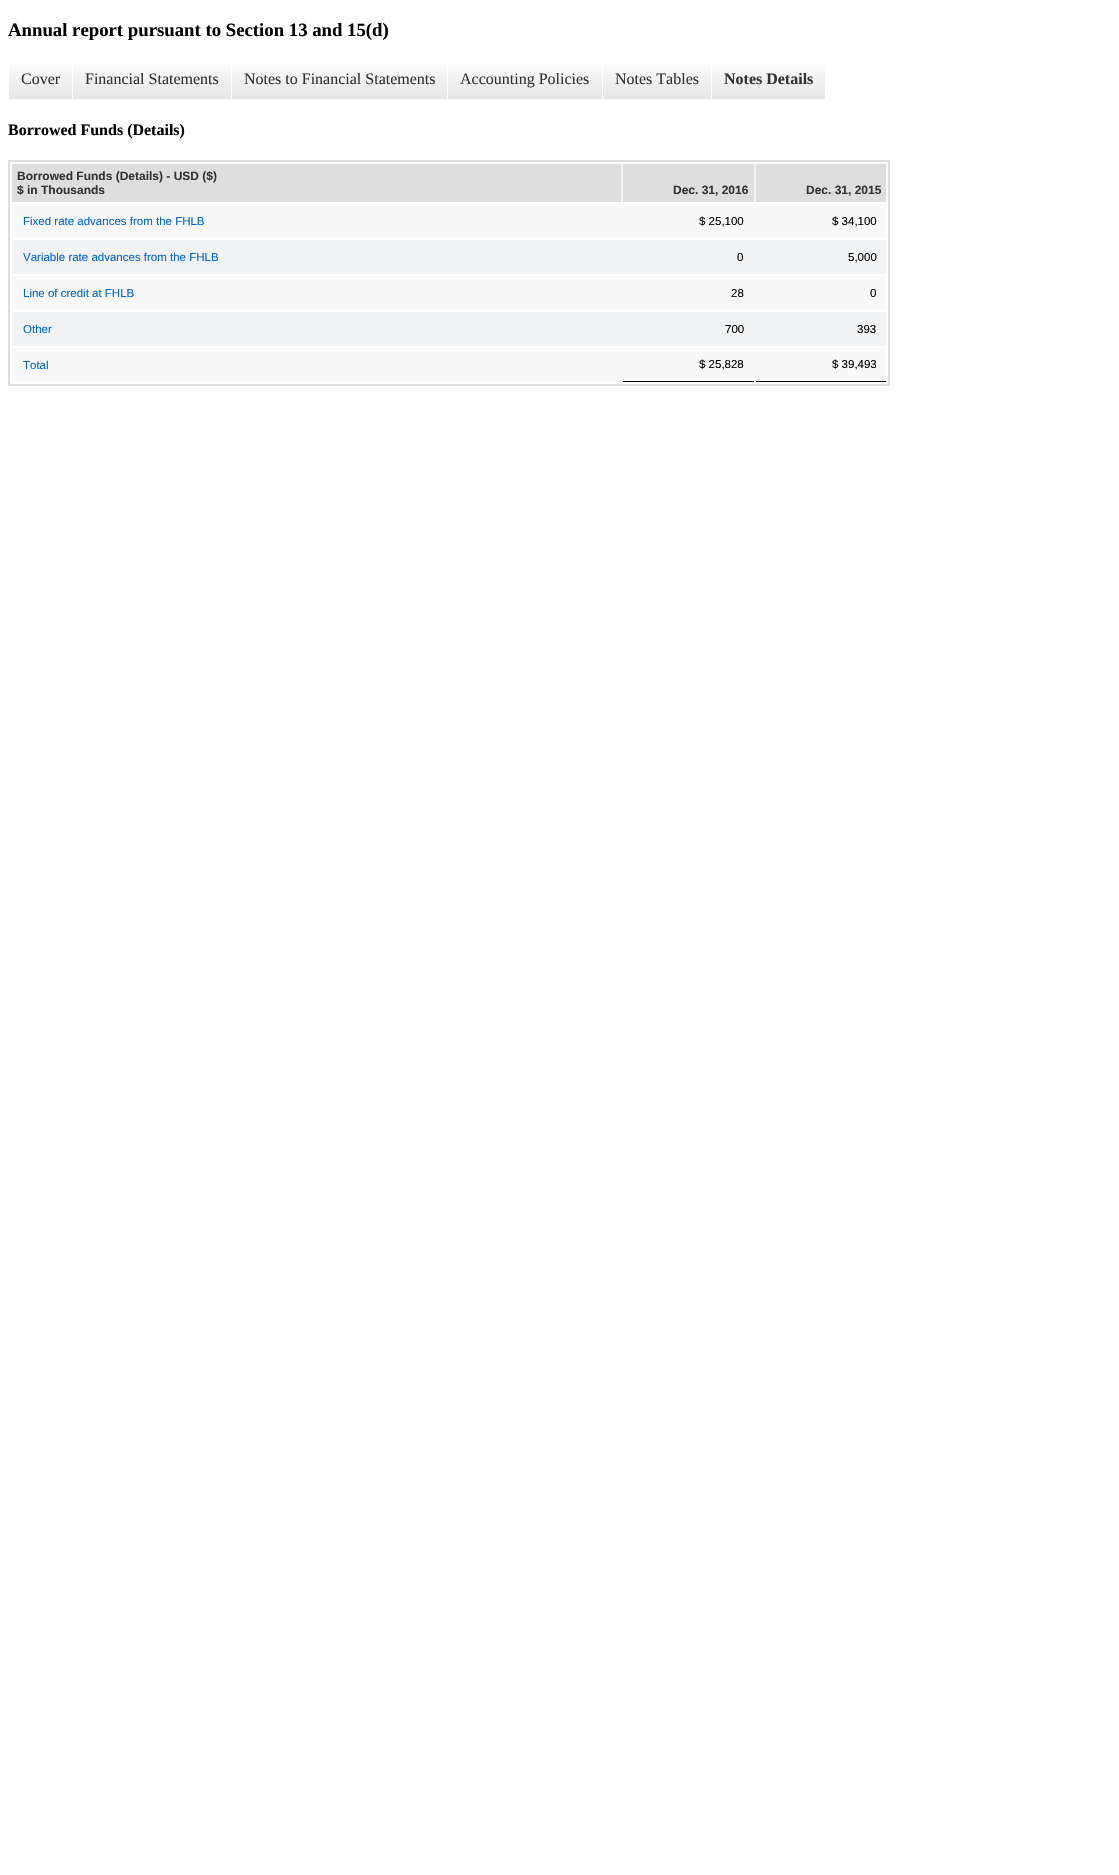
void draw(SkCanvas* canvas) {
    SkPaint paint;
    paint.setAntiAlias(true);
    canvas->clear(0xFFFFFFFF);
    SkFont font1(fontMgr->matchFamilyStyle("Liberation Serif", SkFontStyle::Bold()), 18.75f);
    font1.setSubpixel(true);
    paint.setColor(0xFF000000);
    canvas->drawString("Annual report pursuant to Section 13 and 15(d)", 8, 36, font1, paint);
    {
        const SkColor colors[] = {0xFFFFFFFF, 0xFFE5E5E5};
        const float stops[] = {0, 1};
        const SkPoint ends[] = {{41, 59}, {41, 99}};
        paint.setShader(SkGradientShader::MakeLinear(ends, colors, stops, 2, SkTileMode::kClamp));
        paint.setAlpha(255);
    }
    canvas->drawRect(SkRect::MakeXYWH(9, 63, 63, 36), paint);
    SkFont font2(fontMgr->matchFamilyStyle("Liberation Serif", SkFontStyle::Normal()), 16);
    font2.setSubpixel(true);
    paint.setShader(nullptr);
    paint.setColor(0xFF333333);
    canvas->drawString("Cover", 21, 84, font2, paint);
    {
        const SkColor colors[] = {0xFFFFFFFF, 0xFFE5E5E5};
        const float stops[] = {0, 1};
        const SkPoint ends[] = {{152, 59}, {152, 99}};
        paint.setShader(SkGradientShader::MakeLinear(ends, colors, stops, 2, SkTileMode::kClamp));
        paint.setAlpha(255);
    }
    canvas->drawRect(SkRect::MakeXYWH(73, 63, 158, 36), paint);
    paint.setShader(nullptr);
    paint.setColor(0xFF333333);
    canvas->drawString("Financial Statements", 85, 84, font2, paint);
    {
        const SkColor colors[] = {0xFFFFFFFF, 0xFFE5E5E5};
        const float stops[] = {0, 1};
        const SkPoint ends[] = {{340, 59}, {340, 99}};
        paint.setShader(SkGradientShader::MakeLinear(ends, colors, stops, 2, SkTileMode::kClamp));
        paint.setAlpha(255);
    }
    canvas->drawRect(SkRect::MakeXYWH(232, 63, 215, 36), paint);
    paint.setShader(nullptr);
    paint.setColor(0xFF333333);
    canvas->drawString("Notes to Financial Statements", 244, 84, font2, paint);
    {
        const SkColor colors[] = {0xFFFFFFFF, 0xFFE5E5E5};
        const float stops[] = {0, 1};
        const SkPoint ends[] = {{525, 59}, {525, 99}};
        paint.setShader(SkGradientShader::MakeLinear(ends, colors, stops, 2, SkTileMode::kClamp));
        paint.setAlpha(255);
    }
    canvas->drawRect(SkRect::MakeXYWH(448, 63, 154, 36), paint);
    paint.setShader(nullptr);
    paint.setColor(0xFF333333);
    canvas->drawString("Accounting Policies", 460, 84, font2, paint);
    {
        const SkColor colors[] = {0xFFFFFFFF, 0xFFE5E5E5};
        const float stops[] = {0, 1};
        const SkPoint ends[] = {{657, 59}, {657, 99}};
        paint.setShader(SkGradientShader::MakeLinear(ends, colors, stops, 2, SkTileMode::kClamp));
        paint.setAlpha(255);
    }
    canvas->drawRect(SkRect::MakeXYWH(603, 63, 108, 36), paint);
    paint.setShader(nullptr);
    paint.setColor(0xFF333333);
    canvas->drawString("Notes Tables", 615, 84, font2, paint);
    {
        const SkColor colors[] = {0xFFFFFFFF, 0xFFE5E5E5};
        const float stops[] = {0, 1};
        const SkPoint ends[] = {{769, 59}, {769, 99}};
        paint.setShader(SkGradientShader::MakeLinear(ends, colors, stops, 2, SkTileMode::kClamp));
        paint.setAlpha(255);
    }
    canvas->drawRect(SkRect::MakeXYWH(712, 63, 113, 36), paint);
    SkFont font3(fontMgr->matchFamilyStyle("Liberation Serif", SkFontStyle::Bold()), 16);
    font3.setSubpixel(true);
    paint.setShader(nullptr);
    paint.setColor(0xFF333333);
    canvas->drawString("Notes Details", 724, 84, font3, paint);
    paint.setColor(0xFF000000);
    canvas->drawString("Borrowed Funds (Details)", 8, 135, font3, paint);
    paint.setStyle(SkPaint::kStroke_Style);
    paint.setStrokeWidth(2);
    paint.setColor(0xFFDEDEDE);
    canvas->drawRect(SkRect::MakeXYWH(9, 161, 880, 224), paint);
    paint.setStyle(SkPaint::kFill_Style);
    paint.setColor(0xFFF2F3F4);
    canvas->drawRect(SkRect::MakeXYWH(621, 164, 135, 38), paint);
    paint.setColor(0xFFDEDEDE);
    canvas->drawRect(SkRect::MakeXYWH(12, 164, 609, 38), paint);
    SkFont font4(fontMgr->matchFamilyStyle("Liberation Sans", SkFontStyle::Bold()), 12);
    font4.setSubpixel(true);
    paint.setColor(0xFF333333);
    canvas->drawString("Borrowed Funds (Details) - USD ($)", 17, 180, font4, paint);
    canvas->drawString("$ in Thousands", 17, 194, font4, paint);
    paint.setColor(0xFFDEDEDE);
    canvas->drawRect(SkRect::MakeXYWH(623, 164, 131, 38), paint);
    paint.setColor(0xFF333333);
    canvas->drawString("Dec. 31, 2016", 673, 194, font4, paint);
    paint.setColor(0xFFDEDEDE);
    canvas->drawRect(SkRect::MakeXYWH(756, 164, 130, 38), paint);
    paint.setColor(0xFF333333);
    canvas->drawString("Dec. 31, 2015", 806, 194, font4, paint);
    paint.setColor(0xFFF9F9F9);
    canvas->drawRect(SkRect::MakeXYWH(12, 204, 874, 34), paint);
    SkFont font5(fontMgr->matchFamilyStyle("Liberation Sans", SkFontStyle::Normal()), 11.5f);
    font5.setSubpixel(true);
    paint.setColor(0xFF0066CC);
    canvas->drawString("Fixed rate advances from the FHLB", 23, 225, font5, paint);
    paint.setColor(0xFF000000);
    canvas->drawString("$ 25,100", 699, 225, font5, paint);
    canvas->drawString("$ 34,100", 832, 225, font5, paint);
    paint.setColor(0xFFF2F3F4);
    canvas->drawRect(SkRect::MakeXYWH(12, 240, 874, 34), paint);
    paint.setColor(0xFF0066CC);
    canvas->drawString("Variable rate advances from the FHLB", 23, 261, font5, paint);
    paint.setColor(0xFF000000);
    canvas->drawString("0", 737, 261, font5, paint);
    canvas->drawString("5,000", 848, 261, font5, paint);
    paint.setColor(0xFFF9F9F9);
    canvas->drawRect(SkRect::MakeXYWH(12, 276, 874, 34), paint);
    paint.setColor(0xFF0066CC);
    canvas->drawString("Line of credit at FHLB", 23, 297, font5, paint);
    paint.setColor(0xFF000000);
    canvas->drawString("28", 731, 297, font5, paint);
    canvas->drawString("0", 870, 297, font5, paint);
    paint.setColor(0xFFF2F3F4);
    canvas->drawRect(SkRect::MakeXYWH(12, 312, 874, 34), paint);
    paint.setColor(0xFF0066CC);
    canvas->drawString("Other", 23, 333, font5, paint);
    paint.setColor(0xFF000000);
    canvas->drawString("700", 725, 333, font5, paint);
    canvas->drawString("393", 857, 333, font5, paint);
    paint.setColor(0xFFF9F9F9);
    canvas->drawRect(SkRect::MakeXYWH(12, 348, 874, 34), paint);
    paint.setColor(0xFF0066CC);
    canvas->drawString("Total", 23, 369, font5, paint);
    paint.setColor(0xFF000000);
    canvas->drawRect(SkRect::MakeXYWH(623, 381, 131, 1), paint);
    canvas->drawString("$ 25,828", 699, 368, font5, paint);
    canvas->drawRect(SkRect::MakeXYWH(756, 381, 130, 1), paint);
    canvas->drawString("$ 39,493", 832, 368, font5, paint);
}
